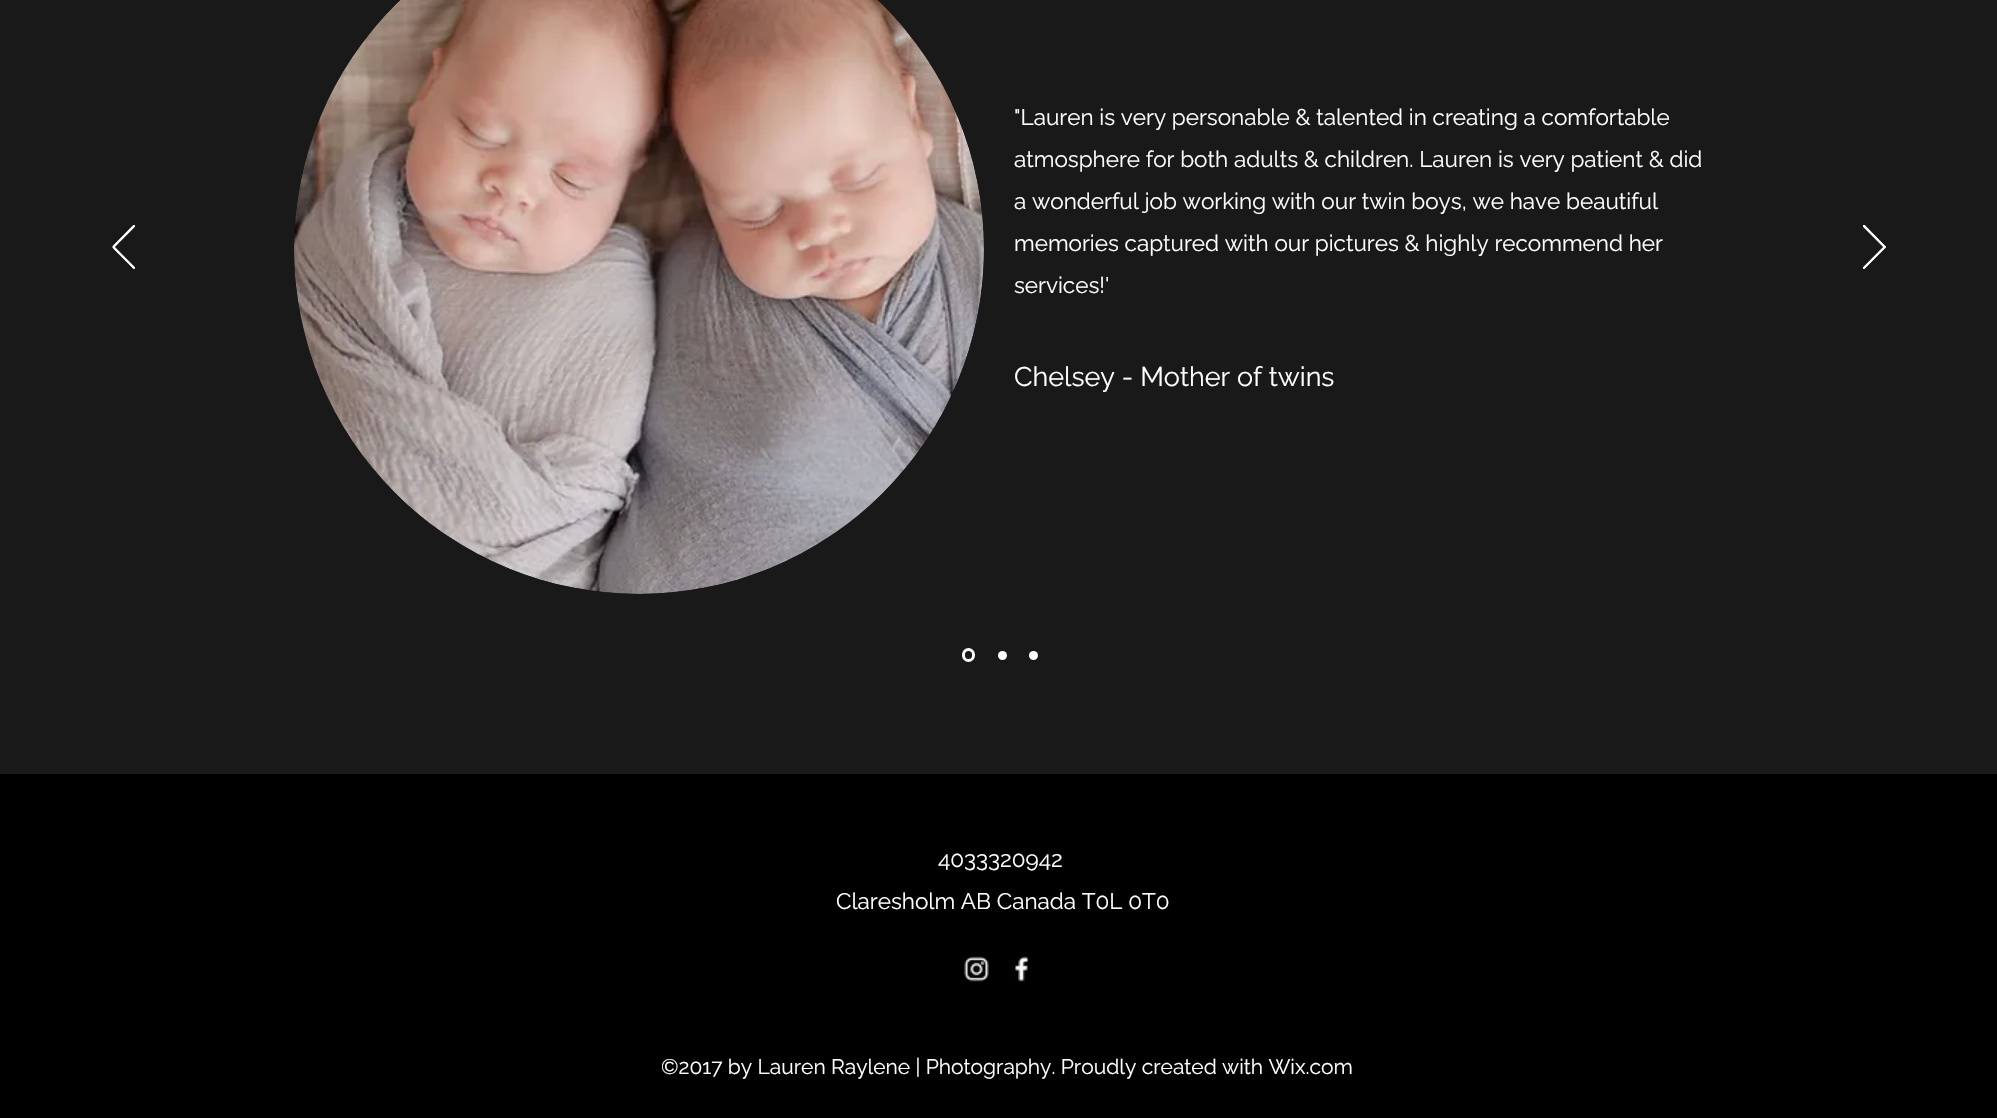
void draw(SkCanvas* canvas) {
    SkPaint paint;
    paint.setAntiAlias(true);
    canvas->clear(0xFF191919);
    paint.setColor(0xFFFFFFFF);
    canvas->drawPath(SkPathBuilder().moveTo(134, 269).lineTo(112, 247).lineTo(134, 225).lineTo(135, 226).lineTo(114, 247).lineTo(135, 268).close().detach(), paint);
    canvas->save();
    canvas->clipRect(SkRect::MakeXYWH(113, 225, 22, 44));
    paint.setStyle(SkPaint::kStroke_Style);
    paint.setStrokeWidth(1.1f);
    canvas->drawPath(SkPathBuilder().moveTo(134, 268.5f).lineTo(112.5f, 247).lineTo(134, 225).lineTo(135, 226).lineTo(114, 247).lineTo(135, 268).close().detach(), paint);
    canvas->restore();
    canvas->drawImageRect(SkImages::DeferredFromEncodedData(SkData::MakeFromFileName("img1.png")), SkRect::MakeXYWH(294, 0, 690, 594), SkSamplingOptions());
    SkFont font1(fontMgr->matchFamilyStyle("Raleway", SkFontStyle::Normal()), 22.5f);
    font1.setSubpixel(true);
    paint.setStyle(SkPaint::kFill_Style);
    canvas->drawString("\"Lauren is very personable & talented in creating a comfortable", 1014, 125, font1, paint);
    canvas->drawString("atmosphere for both adults & children. Lauren is very patient & did", 1014, 167, font1, paint);
    canvas->drawString("a wonderful job working with our twin boys, we have beautiful", 1014, 209, font1, paint);
    canvas->drawString("memories captured with our pictures & highly recommend her", 1014, 251, font1, paint);
    canvas->drawString("services!'", 1014, 293, font1, paint);
    SkFont font2(fontMgr->matchFamilyStyle("Raleway", SkFontStyle::Normal()), 27);
    font2.setSubpixel(true);
    canvas->drawString("Chelsey - Mother of twins", 1014, 386, font2, paint);
    canvas->drawPath(SkPathBuilder().moveTo(1864, 269).lineTo(1886, 247).lineTo(1864, 225).lineTo(1863, 226).lineTo(1884, 247).lineTo(1863, 268).close().detach(), paint);
    canvas->save();
    canvas->clipRect(SkRect::MakeXYWH(1863, 225, 23, 44));
    paint.setStyle(SkPaint::kStroke_Style);
    canvas->drawPath(SkPathBuilder().moveTo(1864, 268.5f).lineTo(1885.5f, 247).lineTo(1864, 225).lineTo(1863, 226).lineTo(1884, 247).lineTo(1863, 268).close().detach(), paint);
    canvas->restore();
    paint.setStrokeWidth(3);
    canvas->drawRoundRect(SkRect::MakeXYWH(963.5f, 649.5f, 10, 11), 5, 5, paint);
    paint.setStyle(SkPaint::kFill_Style);
    canvas->drawCircle(1002.5f, 655.5f, 4.5f, paint);
    canvas->drawCircle(1033.5f, 655.5f, 4.5f, paint);
    paint.setColor(0xFF000000);
    canvas->drawRect(SkRect::MakeXYWH(0, 774, 1997, 344), paint);
    paint.setColor(0xFFFFFFFF);
    canvas->drawString("4033320942", 938, 867, font1, paint);
    canvas->drawString("Claresholm AB Canada T0L 0T0", 836, 909, font1, paint);
    canvas->drawImageRect(SkImages::DeferredFromEncodedData(SkData::MakeFromFileName("img2.png")), SkRect::MakeXYWH(964, 956, 25, 26), SkSamplingOptions());
    canvas->drawImageRect(SkImages::DeferredFromEncodedData(SkData::MakeFromFileName("img3.png")), SkRect::MakeXYWH(1015, 956, 14, 26), SkSamplingOptions());
    SkFont font3(fontMgr->matchFamilyStyle("Raleway", SkFontStyle::Normal()), 21);
    font3.setSubpixel(true);
    canvas->drawString("©2017 by Lauren Raylene | Photography. Proudly created with Wix.com", 661, 1074, font3, paint);
}
